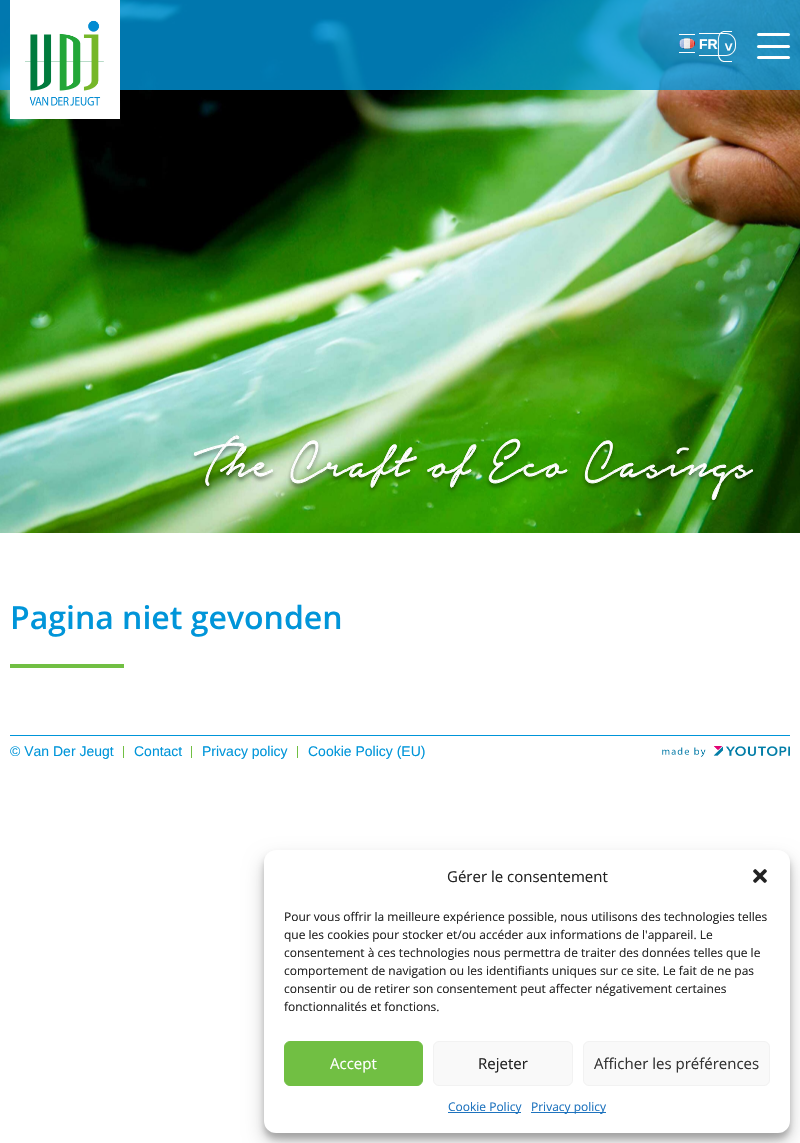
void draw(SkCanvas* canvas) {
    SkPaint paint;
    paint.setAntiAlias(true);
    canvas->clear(0xFFFFFFFF);
    canvas->drawImageRect(SkImages::DeferredFromEncodedData(SkData::MakeFromFileName("img1.png")), SkRect::MakeXYWH(0, 0, 800, 533), SkSamplingOptions());
    paint.setColor(0xCC0095D9);
    canvas->drawRect(SkRect::MakeXYWH(0, 0, 800, 90), paint);
    canvas->drawImageRect(SkImages::DeferredFromEncodedData(SkData::MakeFromFileName("img2.png")), SkRect::MakeXYWH(10, 0, 110, 119), SkSamplingOptions());
    paint.setColor(0xFFFFFFFF);
    canvas->drawPath(SkPathBuilder(SkPathFillType::kEvenOdd).moveTo(725, 31).lineTo(732, 31).lineTo(732, 62).lineTo(723.5f, 62).cubicTo(716.5f, 60.5f, 718, 52, 718, 46.5f).cubicTo(718, 41, 716.5f, 31, 725, 31).close().moveTo(725, 32).lineTo(732, 32).lineTo(732, 61).lineTo(724, 61).cubicTo(717.5f, 59.5f, 719, 51, 719, 46.5f).cubicTo(719, 41.5f, 717.5f, 32, 725, 32).close().detach(), paint);
    canvas->drawRect(SkRect::MakeXYWH(679, 34, 16, 1), paint);
    canvas->drawRect(SkRect::MakeXYWH(679, 52, 16, 1), paint);
    canvas->drawPath(SkPathBuilder(SkPathFillType::kEvenOdd).moveTo(699, 33).lineTo(726, 33).cubicTo(731.5f, 33, 736, 37.5f, 736, 43).lineTo(736, 46).cubicTo(736, 51.5f, 731.5f, 56, 726, 56).lineTo(699, 56).close().moveTo(699, 34).lineTo(726, 34).cubicTo(731, 34, 735, 38, 735, 43).lineTo(735, 46).cubicTo(735, 51, 731, 55, 726, 55).lineTo(699, 55).close().detach(), paint);
    canvas->drawImageRect(SkImages::DeferredFromEncodedData(SkData::MakeFromFileName("img3.png")), SkRect::MakeXYWH(679, 38, 16, 11), SkSamplingOptions());
    SkFont font1(fontMgr->matchFamilyStyle("Liberation Sans", SkFontStyle::Bold()), 14);
    font1.setSubpixel(true);
    canvas->drawString("FR", 699, 49, font1, paint);
    canvas->save();
    canvas->rotate(90, 724, 43);
    canvas->drawString(">", 724, 43, font1, paint);
    canvas->restore();
    canvas->drawImageRect(SkImages::DeferredFromEncodedData(SkData::MakeFromFileName("img4.png")), SkRect::MakeXYWH(191, 435, 563, 70), SkSamplingOptions());
    canvas->drawRoundRect(SkRect::MakeXYWH(757, 33, 33, 3), 1.5f, 1.5f, paint);
    canvas->drawRoundRect(SkRect::MakeXYWH(757, 45, 33, 3), 1.5f, 1.5f, paint);
    canvas->drawRoundRect(SkRect::MakeXYWH(757, 56, 33, 3), 1.5f, 1.5f, paint);
    SkFont font2(fontMgr->matchFamilyStyle("Open Sans", SkFontStyle(600, SkFontStyle::kNormal_Width, SkFontStyle::kUpright_Slant)), 32);
    font2.setSubpixel(true);
    paint.setColor(0xFF0095D9);
    canvas->drawString("Pagina niet gevonden", 10, 629, font2, paint);
    paint.setColor(0xFF71BF43);
    canvas->drawRect(SkRect::MakeXYWH(10, 664, 114, 4), paint);
    paint.setColor(0xFF0095D9);
    canvas->drawRect(SkRect::MakeXYWH(10, 735, 780, 1), paint);
    SkFont font3(fontMgr->matchFamilyStyle("Liberation Sans", SkFontStyle::Normal()), 14);
    font3.setSubpixel(true);
    canvas->drawString("© Van Der Jeugt", 10, 756, font3, paint);
    paint.setColor(0xFF71BF43);
    canvas->drawRect(SkRect::MakeXYWH(123, 746, 1, 12), paint);
    paint.setColor(0xFF0095D9);
    canvas->drawString("Contact", 134, 756, font3, paint);
    paint.setColor(0xFF71BF43);
    canvas->drawRect(SkRect::MakeXYWH(191, 746, 1, 12), paint);
    paint.setColor(0xFF0095D9);
    canvas->drawString("Privacy policy", 202, 756, font3, paint);
    paint.setColor(0xFF71BF43);
    canvas->drawRect(SkRect::MakeXYWH(297, 746, 1, 12), paint);
    paint.setColor(0xFF0095D9);
    canvas->drawString("Cookie Policy (EU)", 308, 756, font3, paint);
    canvas->drawImageRect(SkImages::DeferredFromEncodedData(SkData::MakeFromFileName("img5.png")), SkRect::MakeXYWH(662, 746, 128, 11), SkSamplingOptions());
    paint.setColor(0x3B000000);
    paint.setMaskFilter(SkMaskFilter::MakeBlur(kNormal_SkBlurStyle, 3));
    canvas->drawRoundRect(SkRect::MakeXYWH(264, 856, 526, 283), 12, 12, paint);
    paint.setMaskFilter(nullptr);
    paint.setColor(0x30000000);
    paint.setMaskFilter(SkMaskFilter::MakeBlur(kNormal_SkBlurStyle, 10));
    canvas->drawRoundRect(SkRect::MakeXYWH(264, 860, 526, 283), 12, 12, paint);
    paint.setMaskFilter(nullptr);
    paint.setColor(0xFFFFFFFF);
    canvas->drawRoundRect(SkRect::MakeXYWH(264, 850, 526, 283), 12, 12, paint);
    SkFont font4(fontMgr->matchFamilyStyle("Open Sans", SkFontStyle::Normal()), 15);
    font4.setSubpixel(true);
    paint.setColor(0xFF222222);
    canvas->drawString("Gérer le consentement", 447, 882, font4, paint);
    canvas->drawImageRect(SkImages::DeferredFromEncodedData(SkData::MakeFromFileName("img6.png")), SkRect::MakeXYWH(753, 869, 14, 14), SkSamplingOptions());
    SkFont font5(fontMgr->matchFamilyStyle("Open Sans", SkFontStyle::Normal()), 12);
    font5.setSubpixel(true);
    canvas->drawString("Pour vous offrir la meilleure expérience possible, nous utilisons des technologies telles", 284, 921, font5, paint);
    canvas->drawString("que les cookies pour stocker et/ou accéder aux informations de l'appareil. Le", 284, 939, font5, paint);
    canvas->drawString("consentement à ces technologies nous permettra de traiter des données telles que le", 284, 957, font5, paint);
    canvas->drawString("comportement de navigation ou les identifiants uniques sur ce site. Le fait de ne pas", 284, 975, font5, paint);
    canvas->drawString("consentir ou de retirer son consentement peut affecter négativement certaines", 284, 993, font5, paint);
    canvas->drawString("fonctionnalités et fonctions.", 284, 1011, font5, paint);
    paint.setColor(0xFF71BF43);
    canvas->drawRoundRect(SkRect::MakeXYWH(284.5f, 1041.5f, 138, 44), 5.5f, 5.5f, paint);
    paint.setStyle(SkPaint::kStroke_Style);
    paint.setStrokeWidth(1);
    canvas->drawRoundRect(SkRect::MakeXYWH(284.5f, 1041.5f, 138, 44), 5.5f, 5.5f, paint);
    paint.setStyle(SkPaint::kFill_Style);
    paint.setColor(0xFFFFFFFF);
    canvas->drawString("Accept", 330, 1069, font4, paint);
    paint.setColor(0xFFF9F9F9);
    canvas->drawRoundRect(SkRect::MakeXYWH(433.5f, 1041.5f, 139, 44), 5.5f, 5.5f, paint);
    paint.setStyle(SkPaint::kStroke_Style);
    paint.setColor(0xFFF2F2F2);
    canvas->drawRoundRect(SkRect::MakeXYWH(433.5f, 1041.5f, 139, 44), 5.5f, 5.5f, paint);
    paint.setStyle(SkPaint::kFill_Style);
    paint.setColor(0xFF222222);
    canvas->drawString("Rejeter", 478, 1069, font4, paint);
    paint.setColor(0xFFF9F9F9);
    canvas->drawRoundRect(SkRect::MakeXYWH(583.5f, 1041.5f, 186, 44), 5.5f, 5.5f, paint);
    paint.setStyle(SkPaint::kStroke_Style);
    paint.setColor(0xFFF2F2F2);
    canvas->drawRoundRect(SkRect::MakeXYWH(583.5f, 1041.5f, 186, 44), 5.5f, 5.5f, paint);
    paint.setStyle(SkPaint::kFill_Style);
    paint.setColor(0xFF333333);
    canvas->drawString("Afficher les préférences", 594, 1069, font4, paint);
    paint.setColor(0xFF1E73BE);
    canvas->drawRect(SkRect::MakeXYWH(448, 1112, 73, 1), paint);
    canvas->drawString("Cookie Policy", 448, 1111, font5, paint);
    canvas->drawRect(SkRect::MakeXYWH(531, 1112, 75, 1), paint);
    canvas->drawString("Privacy policy", 531, 1111, font5, paint);
}
